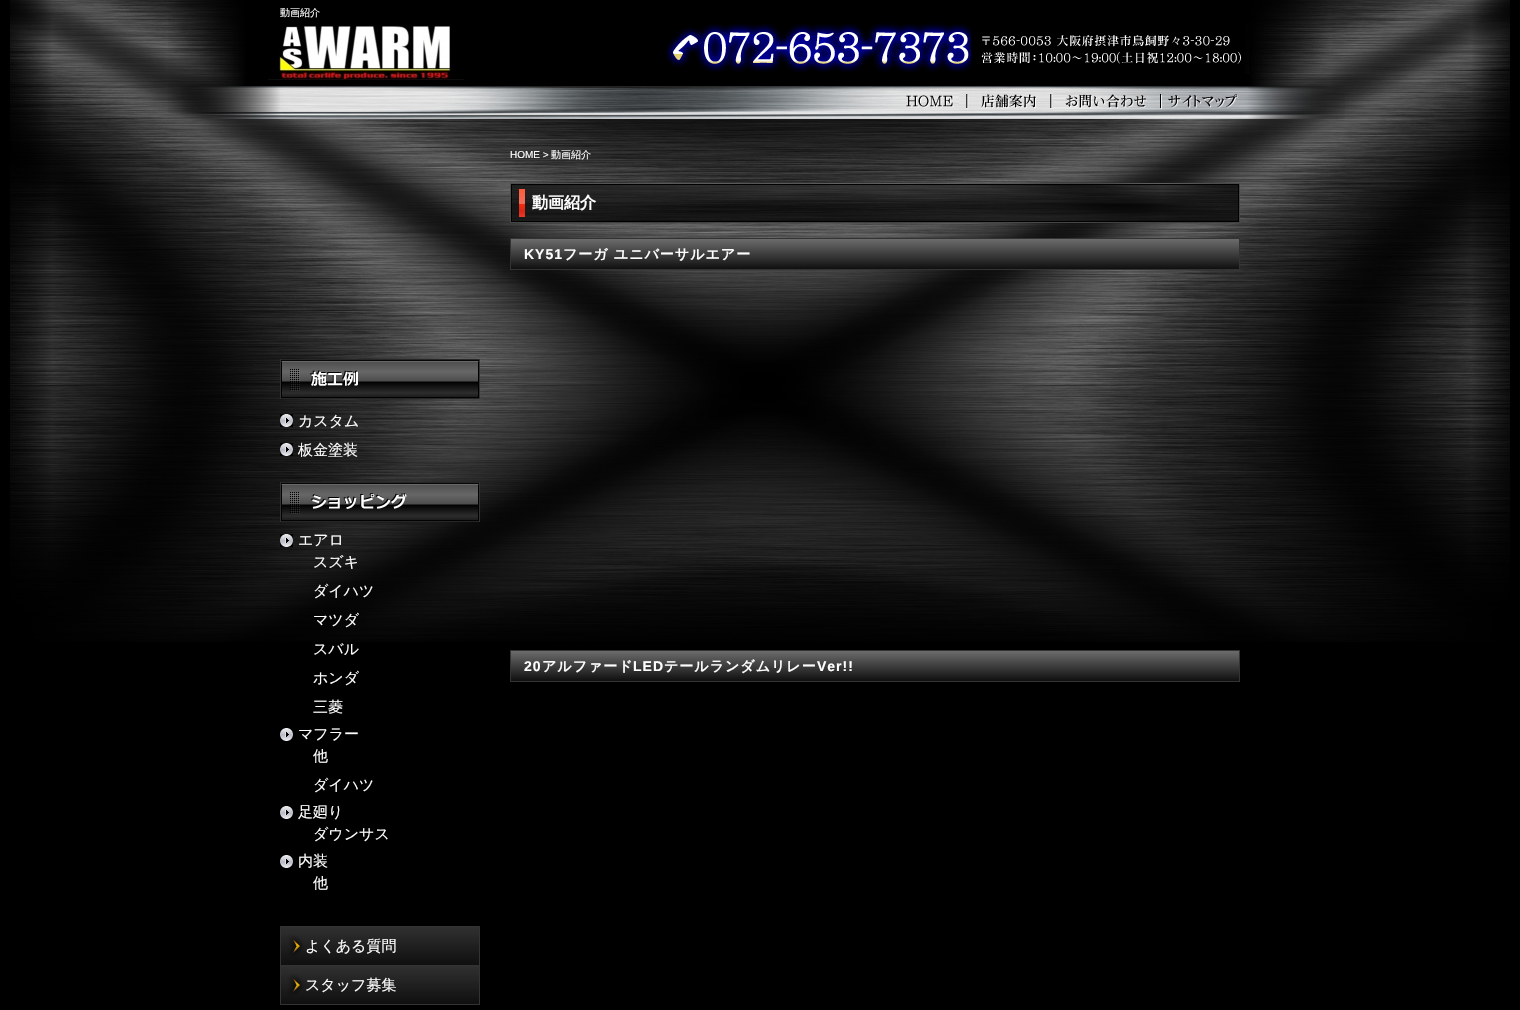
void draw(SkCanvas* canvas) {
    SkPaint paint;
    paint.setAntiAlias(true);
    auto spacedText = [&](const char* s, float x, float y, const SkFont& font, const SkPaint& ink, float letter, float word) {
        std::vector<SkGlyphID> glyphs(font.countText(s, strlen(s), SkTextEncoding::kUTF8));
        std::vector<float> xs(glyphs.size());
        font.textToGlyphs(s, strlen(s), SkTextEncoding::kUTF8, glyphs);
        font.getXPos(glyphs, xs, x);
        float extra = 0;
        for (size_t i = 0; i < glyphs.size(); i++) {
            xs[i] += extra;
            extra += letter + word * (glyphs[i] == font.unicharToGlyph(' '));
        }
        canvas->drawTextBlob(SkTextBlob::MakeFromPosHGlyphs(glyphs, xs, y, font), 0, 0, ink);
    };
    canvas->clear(0xFF000000);
    canvas->drawImageRect(SkImages::DeferredFromEncodedData(SkData::MakeFromFileName("img1.png")), SkRect::MakeXYWH(10, 0, 1500, 642), SkSamplingOptions());
    canvas->drawImageRect(SkImages::DeferredFromEncodedData(SkData::MakeFromFileName("img2.png")), SkRect::MakeXYWH(168, 0, 1177, 119), SkSamplingOptions());
    SkFont font1(fontMgr->matchFamilyStyle("WenQuanYi Zen Hei", SkFontStyle(500, SkFontStyle::kNormal_Width, SkFontStyle::kUpright_Slant)), 10);
    font1.setSubpixel(true);
    paint.setColor(0xFFFFFFFF);
    canvas->drawString("動画紹介", 280, 16, font1, paint);
    canvas->drawImageRect(SkImages::DeferredFromEncodedData(SkData::MakeFromFileName("img3.png")), SkRect::MakeXYWH(280, 359, 200, 40), SkSamplingOptions());
    canvas->drawImageRect(SkImages::DeferredFromEncodedData(SkData::MakeFromFileName("img4.png")), SkRect::MakeXYWH(280, 414, 13, 13), SkSamplingOptions());
    SkFont font2(fontMgr->matchFamilyStyle("WenQuanYi Zen Hei", SkFontStyle(500, SkFontStyle::kNormal_Width, SkFontStyle::kUpright_Slant)), 15);
    font2.setSubpixel(true);
    canvas->drawString("カスタム", 298, 426, font2, paint);
    canvas->drawImageRect(SkImages::DeferredFromEncodedData(SkData::MakeFromFileName("img4.png")), SkRect::MakeXYWH(280, 443, 13, 13), SkSamplingOptions());
    canvas->drawString("板金塗装", 298, 455, font2, paint);
    canvas->drawImageRect(SkImages::DeferredFromEncodedData(SkData::MakeFromFileName("img5.png")), SkRect::MakeXYWH(280, 482, 200, 40), SkSamplingOptions());
    canvas->drawImageRect(SkImages::DeferredFromEncodedData(SkData::MakeFromFileName("img4.png")), SkRect::MakeXYWH(280, 534, 13, 13), SkSamplingOptions());
    canvas->drawString("エアロ", 298, 545, font2, paint);
    canvas->drawString("スズキ", 313, 567, font2, paint);
    canvas->drawString("ダイハツ", 313, 596, font2, paint);
    canvas->drawString("マツダ", 313, 625, font2, paint);
    canvas->drawString("スバル", 313, 654, font2, paint);
    canvas->drawString("ホンダ", 313, 683, font2, paint);
    canvas->drawString("三菱", 313, 712, font2, paint);
    canvas->drawImageRect(SkImages::DeferredFromEncodedData(SkData::MakeFromFileName("img4.png")), SkRect::MakeXYWH(280, 728, 13, 13), SkSamplingOptions());
    canvas->drawString("マフラー", 298, 739, font2, paint);
    canvas->drawString("他", 313, 761, font2, paint);
    canvas->drawString("ダイハツ", 313, 790, font2, paint);
    canvas->drawImageRect(SkImages::DeferredFromEncodedData(SkData::MakeFromFileName("img4.png")), SkRect::MakeXYWH(280, 806, 13, 13), SkSamplingOptions());
    canvas->drawString("足廻り", 298, 817, font2, paint);
    canvas->drawString("ダウンサス", 313, 839, font2, paint);
    canvas->drawImageRect(SkImages::DeferredFromEncodedData(SkData::MakeFromFileName("img4.png")), SkRect::MakeXYWH(280, 855, 13, 13), SkSamplingOptions());
    canvas->drawString("内装", 298, 866, font2, paint);
    canvas->drawString("他", 313, 888, font2, paint);
    canvas->drawImageRect(SkImages::DeferredFromEncodedData(SkData::MakeFromFileName("img6.png")), SkRect::MakeXYWH(280, 926, 200, 39), SkSamplingOptions());
    canvas->drawString("よくある質問", 305, 951, font2, paint);
    paint.setColor(0xFF333333);
    canvas->drawRect(SkRect::MakeXYWH(280, 1004, 200, 1), paint);
    canvas->drawImageRect(SkImages::DeferredFromEncodedData(SkData::MakeFromFileName("img6.png")), SkRect::MakeXYWH(280, 965, 200, 39), SkSamplingOptions());
    paint.setColor(0xFFFFFFFF);
    canvas->drawString("スタッフ募集", 305, 990, font2, paint);
    SkFont font3(fontMgr->matchFamilyStyle("Liberation Sans", SkFontStyle::Normal()), 10);
    font3.setSubpixel(true);
    canvas->drawString("HOME >", 510, 158, font3, paint);
    canvas->drawString("動画紹介", 551, 158, font1, paint);
    canvas->drawImageRect(SkImages::DeferredFromEncodedData(SkData::MakeFromFileName("img7.png")), SkRect::MakeXYWH(510, 183, 730, 40), SkSamplingOptions());
    SkFont font4(fontMgr->matchFamilyStyle("WenQuanYi Zen Hei", SkFontStyle::Bold()), 16);
    font4.setSubpixel(true);
    canvas->drawString("動画紹介", 532, 208, font4, paint);
    canvas->drawImageRect(SkImages::DeferredFromEncodedData(SkData::MakeFromFileName("img8.png")), SkRect::MakeXYWH(510, 238, 730, 32), SkSamplingOptions());
    SkFont font5(fontMgr->matchFamilyStyle("Liberation Sans", SkFontStyle::Bold()), 14);
    font5.setSubpixel(true);
    spacedText("KY51", 524, 259, font5, paint, 1, 0);
    SkFont font6(fontMgr->matchFamilyStyle("WenQuanYi Zen Hei", SkFontStyle::Bold()), 14);
    font6.setSubpixel(true);
    spacedText("フーガ ユニバーサルエアー", 563, 259, font6, paint, 1, 0);
    canvas->drawImageRect(SkImages::DeferredFromEncodedData(SkData::MakeFromFileName("img8.png")), SkRect::MakeXYWH(510, 650, 730, 32), SkSamplingOptions());
    spacedText("20", 524, 671, font5, paint, 1, 0);
    spacedText("アルファード", 542, 671, font6, paint, 1, 0);
    spacedText("LED", 633, 671, font5, paint, 1, 0);
    spacedText("テールランダムリレー", 664, 671, font6, paint, 1, 0);
    spacedText("Ver!!", 817, 671, font5, paint, 1, 0);
}
